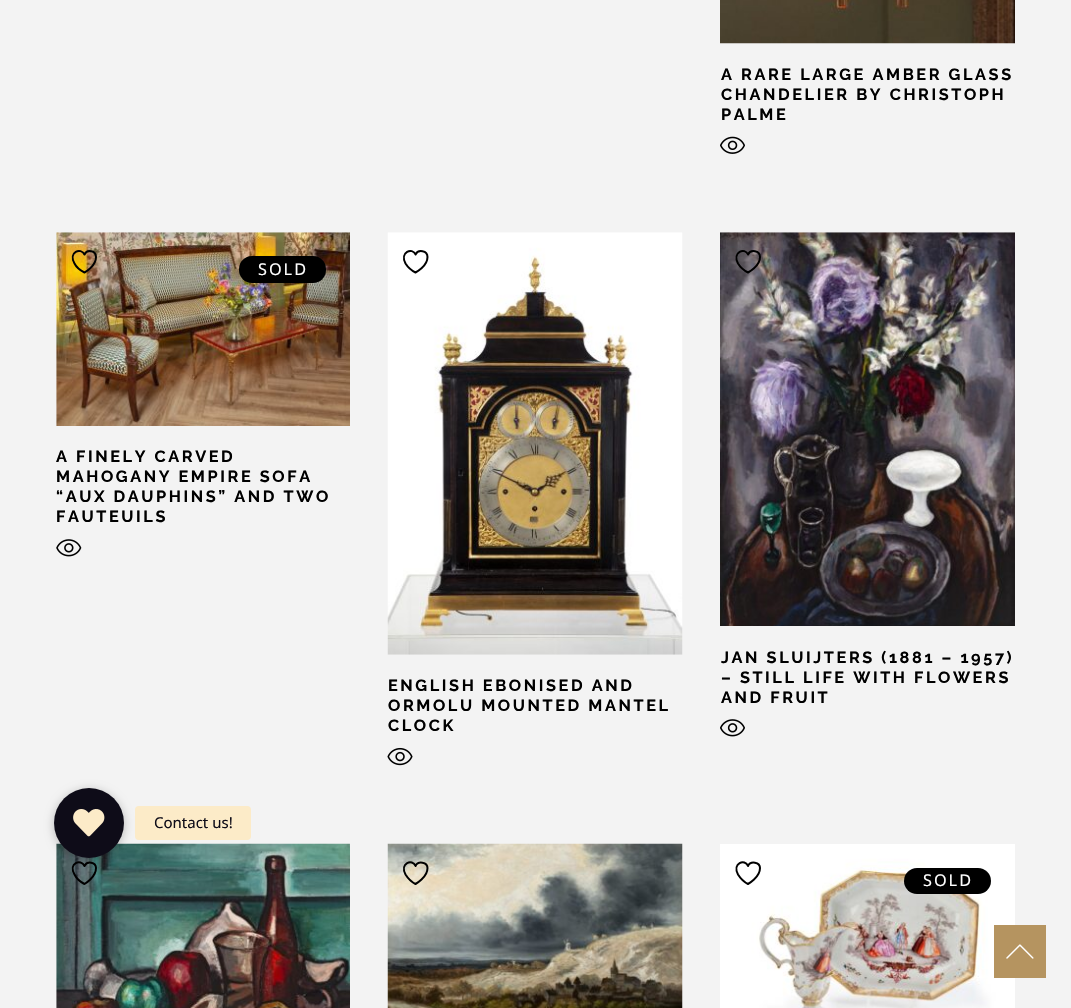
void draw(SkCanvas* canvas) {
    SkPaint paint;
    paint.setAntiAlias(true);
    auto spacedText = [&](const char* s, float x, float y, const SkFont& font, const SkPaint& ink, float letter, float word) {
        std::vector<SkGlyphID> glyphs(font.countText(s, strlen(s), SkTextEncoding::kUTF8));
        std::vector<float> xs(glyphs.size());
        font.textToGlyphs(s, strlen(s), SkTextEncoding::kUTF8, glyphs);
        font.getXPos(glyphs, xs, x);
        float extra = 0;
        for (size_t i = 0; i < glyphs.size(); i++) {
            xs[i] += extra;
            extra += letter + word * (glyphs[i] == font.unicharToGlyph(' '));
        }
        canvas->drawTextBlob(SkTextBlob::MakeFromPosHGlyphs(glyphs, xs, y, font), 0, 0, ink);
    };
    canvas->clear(0xFFF3F3F3);
    canvas->drawImageRect(SkImages::DeferredFromEncodedData(SkData::MakeFromFileName("img1.png")), SkRect::MakeXYWH(720, 0, 295, 44), SkSamplingOptions());
    SkFont font1(fontMgr->matchFamilyStyle("Raleway", SkFontStyle::Bold()), 16.25f);
    font1.setSubpixel(true);
    paint.setColor(0xFF000000);
    spacedText("A RARE LARGE AMBER GLASS", 721, 80, font1, paint, 2.6f, 0);
    spacedText("CHANDELIER BY CHRISTOPH", 721, 100, font1, paint, 2.6f, 0);
    spacedText("PALME", 721, 120, font1, paint, 2.6f, 0);
    canvas->drawImageRect(SkImages::DeferredFromEncodedData(SkData::MakeFromFileName("img2.png")), SkRect::MakeXYWH(720, 136, 25, 18), SkSamplingOptions());
    canvas->drawImageRect(SkImages::DeferredFromEncodedData(SkData::MakeFromFileName("img3.png")), SkRect::MakeXYWH(56, 232, 294, 194), SkSamplingOptions());
    paint.setStyle(SkPaint::kStroke_Style);
    paint.setStrokeWidth(2);
    paint.setStrokeCap(SkPaint::kRound_Cap);
    paint.setStrokeJoin(SkPaint::kRound_Join);
    canvas->drawPath(SkPathBuilder().moveTo(96, 257).cubicTo(96, 250.5f, 87, 249, 84.5f, 254.5f).cubicTo(81, 247, 68, 252, 74.5f, 263.5f).cubicTo(76.5f, 267.5f, 80.5f, 270.5f, 84.5f, 272.5f).cubicTo(84.5f, 272.5f, 96, 266.5f, 96, 257).close().detach(), paint);
    paint.setStyle(SkPaint::kFill_Style);
    canvas->drawRoundRect(SkRect::MakeXYWH(239, 256, 87, 27), 13, 13, paint);
    SkFont font2(fontMgr->matchFamilyStyle("Noto Sans", SkFontStyle::Normal()), 16.25f);
    font2.setSubpixel(true);
    paint.setColor(0xFFFFFFFF);
    spacedText("SOLD", 258, 275, font2, paint, 2, 0);
    paint.setColor(0xFF000000);
    spacedText("A FINELY CARVED", 56, 462, font1, paint, 2.6f, 0);
    spacedText("MAHOGANY EMPIRE SOFA", 56, 482, font1, paint, 2.6f, 0);
    spacedText("“AUX DAUPHINS” AND TWO", 56, 502, font1, paint, 2.6f, 0);
    spacedText("FAUTEUILS", 56, 522, font1, paint, 2.6f, 0);
    canvas->drawImageRect(SkImages::DeferredFromEncodedData(SkData::MakeFromFileName("img4.png")), SkRect::MakeXYWH(56, 539, 26, 18), SkSamplingOptions());
    canvas->drawImageRect(SkImages::DeferredFromEncodedData(SkData::MakeFromFileName("img5.png")), SkRect::MakeXYWH(387, 232, 296, 423), SkSamplingOptions());
    paint.setStyle(SkPaint::kStroke_Style);
    canvas->drawPath(SkPathBuilder().moveTo(427.5f, 257).cubicTo(427.5f, 250.5f, 418, 249, 415.5f, 254.5f).cubicTo(412.5f, 247, 399.5f, 252, 405.5f, 263.5f).cubicTo(408, 267.5f, 411.5f, 270.5f, 415.5f, 272.5f).cubicTo(415.5f, 272.5f, 427.5f, 266.5f, 427.5f, 257).close().detach(), paint);
    paint.setStyle(SkPaint::kFill_Style);
    spacedText("ENGLISH EBONISED AND", 388, 691, font1, paint, 2.6f, 0);
    spacedText("ORMOLU MOUNTED MANTEL", 388, 711, font1, paint, 2.6f, 0);
    spacedText("CLOCK", 388, 731, font1, paint, 2.6f, 0);
    canvas->drawImageRect(SkImages::DeferredFromEncodedData(SkData::MakeFromFileName("img6.png")), SkRect::MakeXYWH(387, 747, 26, 19), SkSamplingOptions());
    canvas->drawImageRect(SkImages::DeferredFromEncodedData(SkData::MakeFromFileName("img7.png")), SkRect::MakeXYWH(720, 232, 295, 394), SkSamplingOptions());
    paint.setStyle(SkPaint::kStroke_Style);
    canvas->drawPath(SkPathBuilder().moveTo(760, 257).cubicTo(760, 250.5f, 750.5f, 249, 748, 254.5f).cubicTo(745, 247, 732, 252, 738, 263.5f).cubicTo(740.5f, 267.5f, 744, 270.5f, 748, 272.5f).cubicTo(748, 272.5f, 760, 266.5f, 760, 257).close().detach(), paint);
    paint.setStyle(SkPaint::kFill_Style);
    spacedText("JAN SLUIJTERS (1881 – 1957)", 721, 663, font1, paint, 2.6f, 0);
    spacedText("– STILL LIFE WITH FLOWERS", 721, 683, font1, paint, 2.6f, 0);
    spacedText("AND FRUIT", 721, 703, font1, paint, 2.6f, 0);
    canvas->drawImageRect(SkImages::DeferredFromEncodedData(SkData::MakeFromFileName("img8.png")), SkRect::MakeXYWH(720, 719, 25, 18), SkSamplingOptions());
    canvas->drawImageRect(SkImages::DeferredFromEncodedData(SkData::MakeFromFileName("img9.png")), SkRect::MakeXYWH(56, 843, 294, 165), SkSamplingOptions());
    paint.setStyle(SkPaint::kStroke_Style);
    canvas->drawPath(SkPathBuilder().moveTo(96, 868).cubicTo(96, 862, 87, 860.5f, 84.5f, 866).cubicTo(81, 858.5f, 68, 863, 74.5f, 874.5f).cubicTo(76.5f, 878.5f, 80.5f, 882, 84.5f, 884).cubicTo(84.5f, 884, 96, 877.5f, 96, 868).close().detach(), paint);
    canvas->drawImageRect(SkImages::DeferredFromEncodedData(SkData::MakeFromFileName("img10.png")), SkRect::MakeXYWH(387, 843, 296, 165), SkSamplingOptions());
    canvas->drawPath(SkPathBuilder().moveTo(427.5f, 868).cubicTo(427.5f, 862, 418, 860.5f, 415.5f, 866).cubicTo(412.5f, 858.5f, 399.5f, 863, 405.5f, 874.5f).cubicTo(408, 878.5f, 411.5f, 882, 415.5f, 884).cubicTo(415.5f, 884, 427.5f, 877.5f, 427.5f, 868).close().detach(), paint);
    canvas->drawImageRect(SkImages::DeferredFromEncodedData(SkData::MakeFromFileName("img11.png")), SkRect::MakeXYWH(720, 844, 295, 164), SkSamplingOptions());
    canvas->drawPath(SkPathBuilder().moveTo(760, 868).cubicTo(760, 862, 750.5f, 860.5f, 748, 866).cubicTo(745, 858.5f, 732, 863, 738, 874.5f).cubicTo(740.5f, 878.5f, 744, 882, 748, 884).cubicTo(748, 884, 760, 877.5f, 760, 868).close().detach(), paint);
    paint.setStyle(SkPaint::kFill_Style);
    canvas->drawRoundRect(SkRect::MakeXYWH(904, 868, 87, 26), 13, 13, paint);
    paint.setColor(0xFFFFFFFF);
    spacedText("SOLD", 923, 886, font2, paint, 2, 0);
    paint.setColor(0xFFB59460);
    canvas->drawRect(SkRect::MakeXYWH(994, 925, 52, 53), paint);
    canvas->drawImageRect(SkImages::DeferredFromEncodedData(SkData::MakeFromFileName("img12.png")), SkRect::MakeXYWH(1006, 944, 28, 15), SkSamplingOptions());
    paint.setColor(0x33000000);
    paint.setMaskFilter(SkMaskFilter::MakeBlur(kNormal_SkBlurStyle, 4));
    canvas->drawRoundRect(SkRect::MakeXYWH(53, 789, 72, 72), 36, 36, paint);
    paint.setMaskFilter(nullptr);
    paint.setColor(0xFF0E0C18);
    canvas->drawCircle(89, 823, 35, paint);
    canvas->drawImageRect(SkImages::DeferredFromEncodedData(SkData::MakeFromFileName("img13.png")), SkRect::MakeXYWH(73, 809, 32, 28), SkSamplingOptions());
    paint.setColor(0xFFFCEBC8);
    canvas->drawRoundRect(SkRect::MakeXYWH(135, 806, 116, 34), 4, 4, paint);
    SkFont font3(fontMgr->matchFamilyStyle("Noto Sans", SkFontStyle::Normal()), 15);
    font3.setSubpixel(true);
    paint.setColor(0xFF0E0C18);
    canvas->drawString("Contact us!", 154, 828, font3, paint);
}
